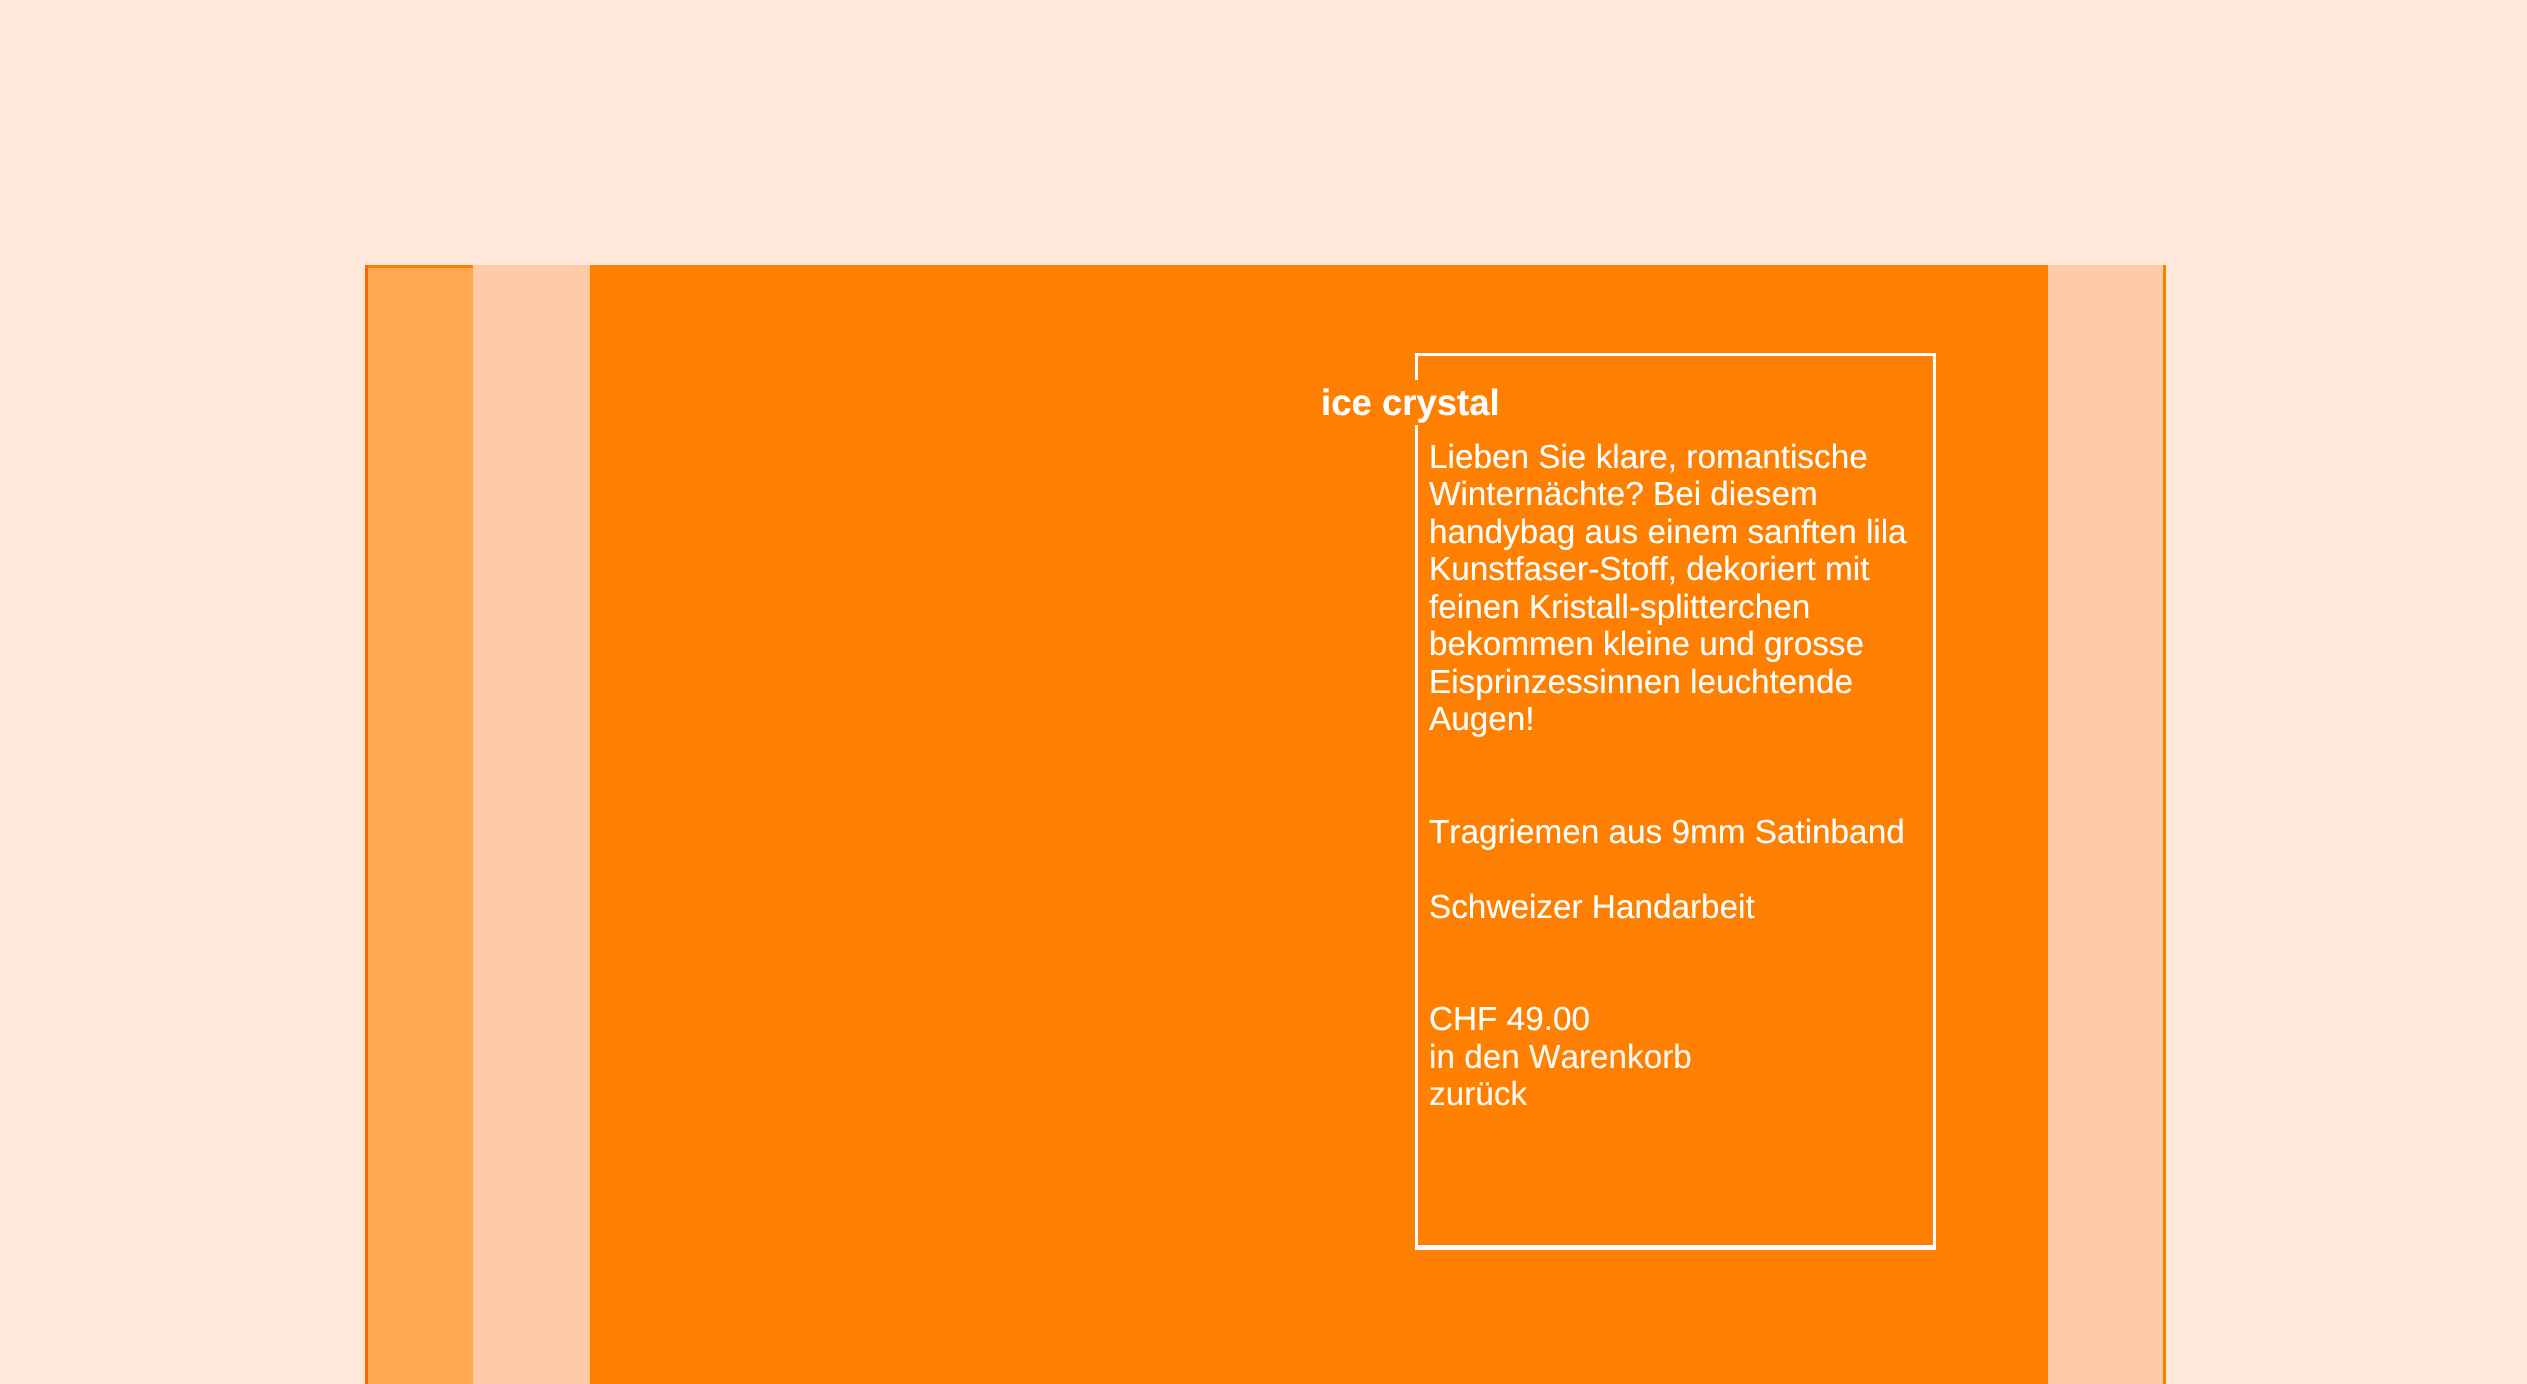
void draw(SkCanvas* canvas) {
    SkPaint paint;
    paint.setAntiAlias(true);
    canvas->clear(0xFFFFE8D9);
    paint.setColor(0xFFFF6600);
    canvas->drawRect(SkRect::MakeXYWH(365, 265, 3, 1119), paint);
    paint.setColor(0xFFFF7F00);
    canvas->drawRect(SkRect::MakeXYWH(368, 265, 105, 3), paint);
    paint.setColor(0xFFFFCAA6);
    canvas->drawRect(SkRect::MakeXYWH(473, 265, 117, 1119), paint);
    paint.setColor(0xFFFF7F00);
    canvas->drawRect(SkRect::MakeXYWH(590, 265, 1458, 3), paint);
    paint.setColor(0xFFFFCAA6);
    canvas->drawRect(SkRect::MakeXYWH(2048, 265, 115, 1119), paint);
    paint.setColor(0xFFFF7F00);
    canvas->drawRect(SkRect::MakeXYWH(2163, 265, 3, 1119), paint);
    paint.setColor(0xFFFFA953);
    canvas->drawRect(SkRect::MakeXYWH(368, 268, 105, 1116), paint);
    paint.setColor(0xFFFF7F00);
    canvas->drawRect(SkRect::MakeXYWH(590, 268, 1458, 1116), paint);
    SkFont font1(fontMgr->matchFamilyStyle("Liberation Sans", SkFontStyle::Bold()), 36.5f);
    font1.setSubpixel(true);
    paint.setColor(0xFFFFFFFF);
    canvas->drawString("ice crystal", 1321, 415, font1, paint);
    canvas->drawRect(SkRect::MakeXYWH(1415, 353, 3, 27), paint);
    canvas->drawRect(SkRect::MakeXYWH(1418, 353, 515, 3), paint);
    canvas->drawRect(SkRect::MakeXYWH(1933, 353, 3, 892), paint);
    canvas->drawRect(SkRect::MakeXYWH(1415, 425, 3, 825), paint);
    SkFont font2(fontMgr->matchFamilyStyle("Liberation Sans", SkFontStyle::Normal()), 33.3f);
    font2.setSubpixel(true);
    canvas->drawString("Lieben Sie klare, romantische", 1429, 468, font2, paint);
    canvas->drawString("Winternächte? Bei diesem", 1429, 505, font2, paint);
    canvas->drawString("handybag aus einem sanften lila", 1429, 543, font2, paint);
    canvas->drawString("Kunstfaser-Stoff, dekoriert mit", 1429, 580, font2, paint);
    canvas->drawString("feinen Kristall-splitterchen", 1429, 618, font2, paint);
    canvas->drawString("bekommen kleine und grosse", 1429, 655, font2, paint);
    canvas->drawString("Eisprinzessinnen leuchtende", 1429, 693, font2, paint);
    canvas->drawString("Augen!", 1429, 730, font2, paint);
    canvas->drawString("Tragriemen aus 9mm Satinband", 1429, 843, font2, paint);
    canvas->drawString("Schweizer Handarbeit", 1429, 918, font2, paint);
    canvas->drawString("CHF 49.00", 1429, 1030, font2, paint);
    paint.setColor(0xFFFFF8F0);
    canvas->drawString("in den Warenkorb", 1429, 1068, font2, paint);
    canvas->drawString("zurück", 1429, 1105, font2, paint);
    paint.setColor(0xFFFFFFFF);
    canvas->drawRect(SkRect::MakeXYWH(1418, 1245, 518, 5), paint);
}
